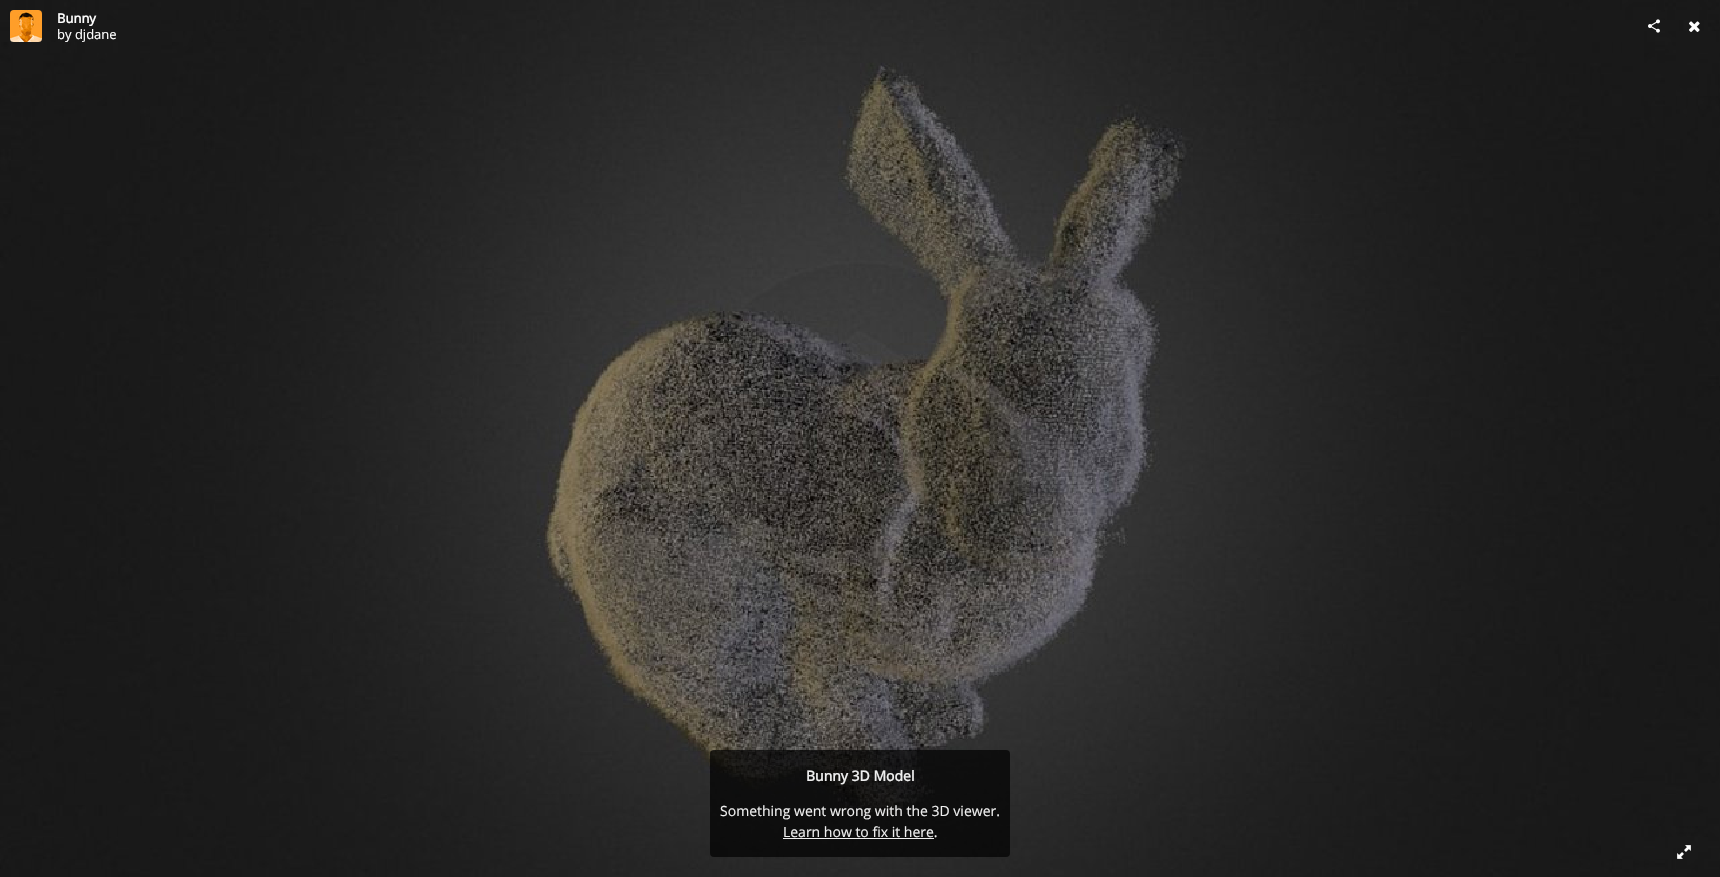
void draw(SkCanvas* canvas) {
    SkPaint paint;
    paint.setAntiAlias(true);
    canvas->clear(0xFFFFFFFF);
    canvas->drawImageRect(SkImages::DeferredFromEncodedData(SkData::MakeFromFileName("img4.png")), SkRect::MakeXYWH(0, 0, 1720, 877), SkSamplingOptions());
    canvas->drawImageRect(SkImages::DeferredFromEncodedData(SkData::MakeFromFileName("img1.png")), SkRect::MakeXYWH(10, 10, 32, 32), SkSamplingOptions());
    SkFont font1(fontMgr->matchFamilyStyle("Open Sans", SkFontStyle::Bold()), 13);
    font1.setSubpixel(true);
    paint.setColor(0xFFFFFFFF);
    canvas->drawString("Bunny", 57, 23, font1, paint);
    SkFont font2(fontMgr->matchFamilyStyle("Open Sans", SkFontStyle::Normal()), 13);
    font2.setSubpixel(true);
    canvas->drawString("by djdane", 57, 39, font2, paint);
    canvas->drawImageRect(SkImages::DeferredFromEncodedData(SkData::MakeFromFileName("img2.png")), SkRect::MakeXYWH(1648, 19, 12, 14), SkSamplingOptions());
    canvas->drawImageRect(SkImages::DeferredFromEncodedData(SkData::MakeFromFileName("img3.png")), SkRect::MakeXYWH(1689, 21, 11, 11), SkSamplingOptions());
    paint.setColor(0xB3000000);
    canvas->drawRoundRect(SkRect::MakeXYWH(710, 750, 300, 107), 4, 4, paint);
    SkFont font3(fontMgr->matchFamilyStyle("Open Sans", SkFontStyle::Bold()), 14);
    font3.setSubpixel(true);
    paint.setColor(0xFFEFEFEF);
    canvas->drawString("Bunny 3D Model", 806, 781, font3, paint);
    SkFont font4(fontMgr->matchFamilyStyle("Open Sans", SkFontStyle::Normal()), 14);
    font4.setSubpixel(true);
    canvas->drawString("Something went wrong with the 3D viewer.", 720, 816, font4, paint);
    canvas->drawString("Learn how to fix it here.", 783, 837, font4, paint);
    canvas->drawRect(SkRect::MakeXYWH(783, 838, 151, 1), paint);
    canvas->drawImageRect(SkImages::DeferredFromEncodedData(SkData::MakeFromFileName("img5.png")), SkRect::MakeXYWH(1677, 845, 14, 14), SkSamplingOptions());
}
